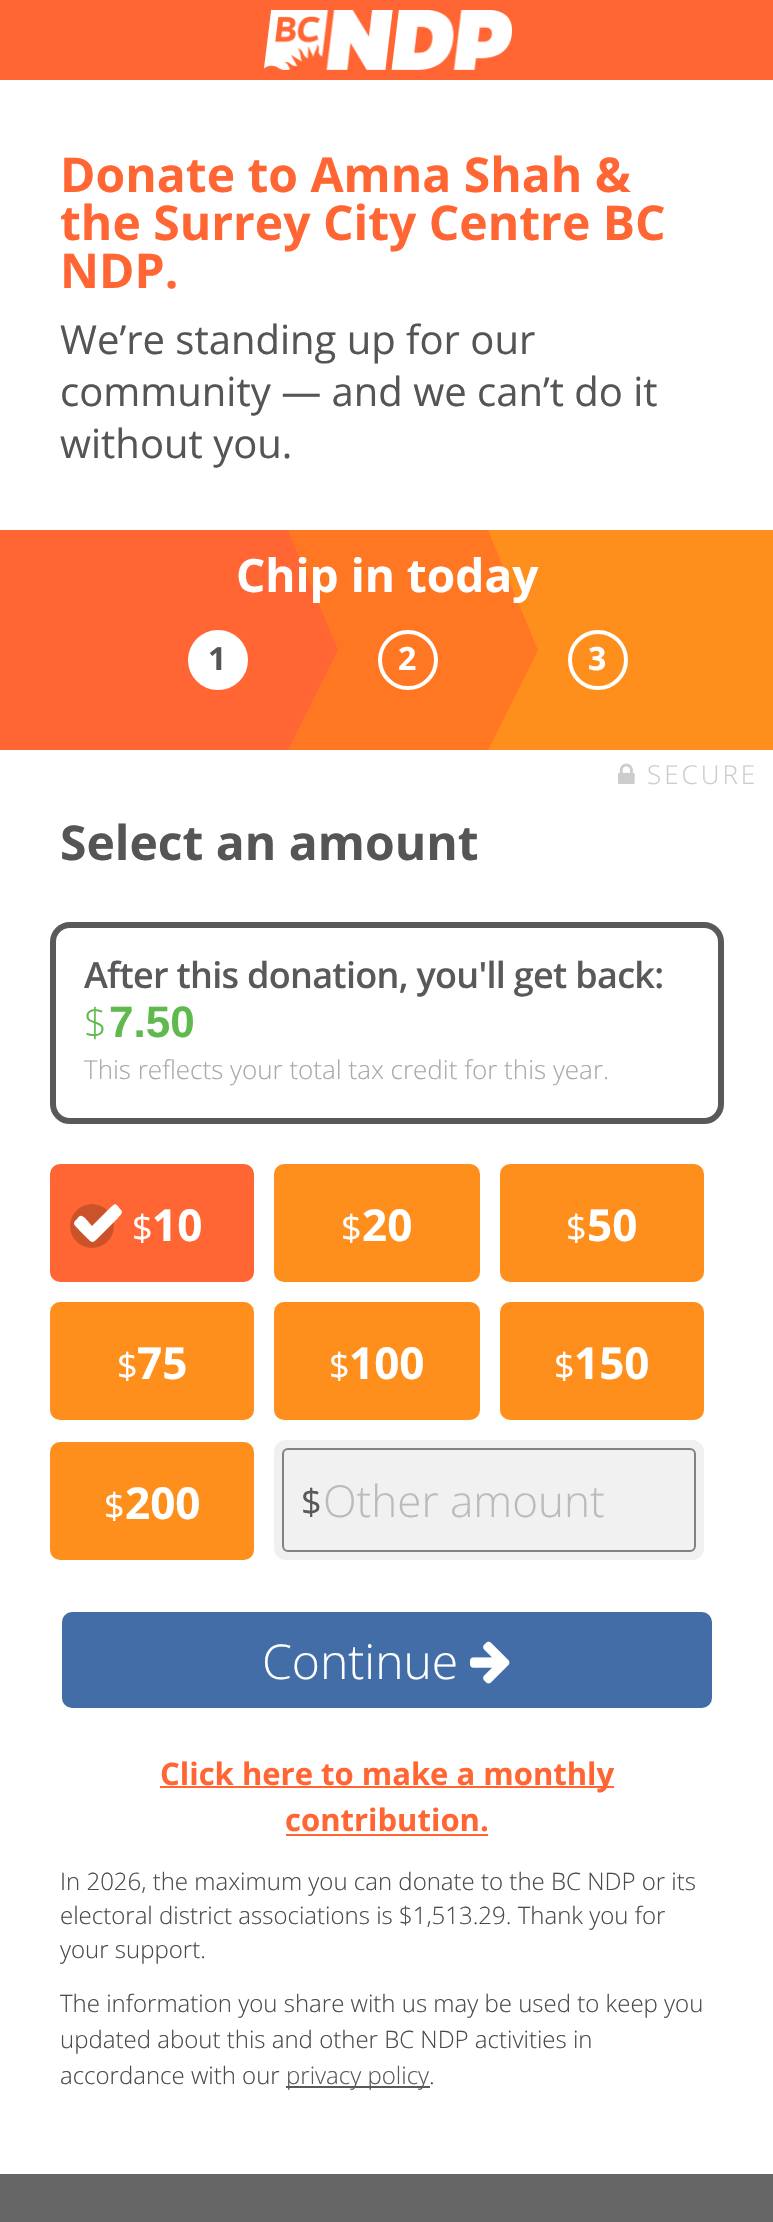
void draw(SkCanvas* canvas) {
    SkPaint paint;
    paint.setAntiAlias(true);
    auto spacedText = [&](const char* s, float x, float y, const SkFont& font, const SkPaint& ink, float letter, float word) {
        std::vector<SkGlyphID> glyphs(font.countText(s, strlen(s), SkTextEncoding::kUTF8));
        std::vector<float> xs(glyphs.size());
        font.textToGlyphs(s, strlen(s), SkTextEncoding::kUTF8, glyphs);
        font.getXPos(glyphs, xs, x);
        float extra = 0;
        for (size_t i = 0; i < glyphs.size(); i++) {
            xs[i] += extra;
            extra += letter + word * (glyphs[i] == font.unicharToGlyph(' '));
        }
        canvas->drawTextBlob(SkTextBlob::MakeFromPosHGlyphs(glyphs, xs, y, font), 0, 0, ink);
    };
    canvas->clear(0xFFFFFFFF);
    paint.setColor(0xFFFF6633);
    canvas->drawRect(SkRect::MakeXYWH(0, 0, 773, 80), paint);
    canvas->drawImageRect(SkImages::DeferredFromEncodedData(SkData::MakeFromFileName("img1.png")), SkRect::MakeXYWH(264, 10, 248, 60), SkSamplingOptions());
    SkFont font1(fontMgr->matchFamilyStyle("Open Sans", SkFontStyle::Bold()), 48);
    font1.setSubpixel(true);
    canvas->drawString("Donate to Amna Shah &", 60, 192, font1, paint);
    canvas->drawString("the Surrey City Centre BC", 60, 240, font1, paint);
    canvas->drawString("NDP.", 60, 288, font1, paint);
    SkFont font2(fontMgr->matchFamilyStyle("Open Sans", SkFontStyle::Normal()), 40);
    font2.setSubpixel(true);
    paint.setColor(0xFF555555);
    canvas->drawString("We’re standing up for our", 60, 354, font2, paint);
    canvas->drawString("community — and we can’t do it", 60, 406, font2, paint);
    canvas->drawString("without you.", 60, 458, font2, paint);
    paint.setColor(0xFFFF6633);
    canvas->drawRect(SkRect::MakeXYWH(0, 530, 288, 220), paint);
    paint.setColor(0xFFFF7722);
    canvas->drawRect(SkRect::MakeXYWH(288, 530, 200, 220), paint);
    paint.setColor(0xFFFF6633);
    canvas->drawPath(SkPathBuilder().moveTo(288, 750).lineTo(288, 530).lineTo(338, 650).close().detach(), paint);
    paint.setColor(0xFFFF8F1C);
    canvas->drawRect(SkRect::MakeXYWH(488, 530, 285, 220), paint);
    paint.setColor(0xFFFF7722);
    canvas->drawPath(SkPathBuilder().moveTo(488, 750).lineTo(488, 530).lineTo(538, 650).close().detach(), paint);
    SkFont font3(fontMgr->matchFamilyStyle("Open Sans", SkFontStyle::Bold()), 46);
    font3.setSubpixel(true);
    paint.setColor(0xFFFFFFFF);
    canvas->drawString("Chip in today", 236, 592, font3, paint);
    canvas->drawCircle(218, 660, 28, paint);
    paint.setStyle(SkPaint::kStroke_Style);
    paint.setStrokeWidth(4);
    canvas->drawCircle(218, 660, 28, paint);
    SkFont font4(fontMgr->matchFamilyStyle("Open Sans", SkFontStyle::Bold()), 32);
    font4.setSubpixel(true);
    paint.setStyle(SkPaint::kFill_Style);
    paint.setColor(0xFF555555);
    canvas->drawString("1", 208, 670, font4, paint);
    paint.setStyle(SkPaint::kStroke_Style);
    paint.setColor(0xFFFFFFFF);
    canvas->drawCircle(408, 660, 28, paint);
    paint.setStyle(SkPaint::kFill_Style);
    canvas->drawString("2", 398, 670, font4, paint);
    paint.setStyle(SkPaint::kStroke_Style);
    canvas->drawCircle(598, 660, 28, paint);
    paint.setStyle(SkPaint::kFill_Style);
    canvas->drawString("3", 588, 670, font4, paint);
    canvas->drawImageRect(SkImages::DeferredFromEncodedData(SkData::MakeFromFileName("img2.png")), SkRect::MakeXYWH(618, 763, 17, 21), SkSamplingOptions());
    SkFont font5(fontMgr->matchFamilyStyle("Open Sans", SkFontStyle(300, SkFontStyle::kNormal_Width, SkFontStyle::kUpright_Slant)), 26);
    font5.setSubpixel(true);
    paint.setColor(0xFFCCCCCC);
    spacedText("SECURE", 647, 784, font5, paint, 3, 0);
    paint.setColor(0xFF555555);
    canvas->drawString("Select an amount", 60, 860, font1, paint);
    paint.setStyle(SkPaint::kStroke_Style);
    paint.setStrokeWidth(6);
    paint.setColor(0xFF58595B);
    canvas->drawRoundRect(SkRect::MakeXYWH(53, 925, 668, 196), 17, 17, paint);
    SkFont font6(fontMgr->matchFamilyStyle("Open Sans", SkFontStyle(600, SkFontStyle::kNormal_Width, SkFontStyle::kUpright_Slant)), 36);
    font6.setSubpixel(true);
    paint.setStyle(SkPaint::kFill_Style);
    spacedText("After this donation, you'll get back:", 84, 988, font6, paint, -0.7f, 0);
    SkFont font7(fontMgr->matchFamilyStyle("Open Sans", SkFontStyle(300, SkFontStyle::kNormal_Width, SkFontStyle::kUpright_Slant)), 40);
    font7.setSubpixel(true);
    paint.setColor(0xFF60B94D);
    canvas->drawString("$", 84, 1037, font7, paint);
    SkFont font8(fontMgr->matchFamilyStyle("Liberation Sans", SkFontStyle::Bold()), 44);
    font8.setSubpixel(true);
    canvas->drawString("7.50", 109, 1037, font8, paint);
    paint.setColor(0xFFAAAAAA);
    canvas->drawString("This reflects your total tax credit for this year.", 84, 1079, font5, paint);
    paint.setColor(0xFFFF6633);
    canvas->drawRoundRect(SkRect::MakeXYWH(50, 1164, 204, 118), 10, 10, paint);
    paint.setColor(0xFFCC5229);
    canvas->drawCircle(92, 1226, 22, paint);
    paint.setColor(0xFFFFFFFF);
    canvas->drawPath(SkPathBuilder().moveTo(121, 1210).cubicTo(124, 1213, 119, 1216, 118, 1218).lineTo(97, 1239).cubicTo(93, 1243, 92, 1243, 88, 1239).lineTo(80, 1231).cubicTo(75, 1225, 71, 1224, 77, 1219).cubicTo(80, 1215, 81, 1215, 85, 1218).lineTo(92, 1226).lineTo(109, 1209).cubicTo(116, 1202, 115, 1203, 121, 1210).close().detach(), paint);
    SkFont font9(fontMgr->matchFamilyStyle("Open Sans", SkFontStyle::Normal()), 36);
    font9.setSubpixel(true);
    canvas->drawString("$", 132, 1241, font9, paint);
    SkFont font10(fontMgr->matchFamilyStyle("Open Sans", SkFontStyle::Bold()), 44);
    font10.setSubpixel(true);
    canvas->drawString("10", 152, 1241, font10, paint);
    paint.setColor(0xFFFF8F1C);
    canvas->drawRoundRect(SkRect::MakeXYWH(274, 1164, 206, 118), 10, 10, paint);
    paint.setColor(0xFFFFFFFF);
    canvas->drawString("$", 341, 1241, font9, paint);
    canvas->drawString("20", 362, 1241, font10, paint);
    paint.setColor(0xFFFF8F1C);
    canvas->drawRoundRect(SkRect::MakeXYWH(500, 1164, 204, 118), 10, 10, paint);
    paint.setColor(0xFFFFFFFF);
    canvas->drawString("$", 566, 1241, font9, paint);
    canvas->drawString("50", 587, 1241, font10, paint);
    paint.setColor(0xFFFF8F1C);
    canvas->drawRoundRect(SkRect::MakeXYWH(50, 1302, 204, 118), 10, 10, paint);
    paint.setColor(0xFFFFFFFF);
    canvas->drawString("$", 117, 1379, font9, paint);
    canvas->drawString("75", 137, 1379, font10, paint);
    paint.setColor(0xFFFF8F1C);
    canvas->drawRoundRect(SkRect::MakeXYWH(274, 1302, 206, 118), 10, 10, paint);
    paint.setColor(0xFFFFFFFF);
    canvas->drawString("$", 329, 1379, font9, paint);
    canvas->drawString("100", 349, 1379, font10, paint);
    paint.setColor(0xFFFF8F1C);
    canvas->drawRoundRect(SkRect::MakeXYWH(500, 1302, 204, 118), 10, 10, paint);
    paint.setColor(0xFFFFFFFF);
    canvas->drawString("$", 554, 1379, font9, paint);
    canvas->drawString("150", 574, 1379, font10, paint);
    paint.setColor(0xFFFF8F1C);
    canvas->drawRoundRect(SkRect::MakeXYWH(50, 1442, 204, 118), 10, 10, paint);
    paint.setColor(0xFFFFFFFF);
    canvas->drawString("$", 104, 1519, font9, paint);
    canvas->drawString("200", 125, 1519, font10, paint);
    paint.setColor(0xFFF0F0F0);
    canvas->drawRoundRect(SkRect::MakeXYWH(274, 1440, 430, 120), 12, 12, paint);
    paint.setColor(0x1AFFFFFF);
    canvas->drawRoundRect(SkRect::MakeXYWH(283, 1449, 412, 102), 5, 5, paint);
    paint.setStyle(SkPaint::kStroke_Style);
    paint.setStrokeWidth(2);
    paint.setColor(0xFF808285);
    canvas->drawRoundRect(SkRect::MakeXYWH(283, 1449, 412, 102), 5, 5, paint);
    paint.setStyle(SkPaint::kFill_Style);
    paint.setColor(0xFF58595B);
    canvas->drawString("$", 301, 1515, font9, paint);
    SkFont font11(fontMgr->matchFamilyStyle("Open Sans", SkFontStyle(300, SkFontStyle::kNormal_Width, SkFontStyle::kUpright_Slant)), 44);
    font11.setSubpixel(true);
    paint.setColor(0xFFBBBBBB);
    canvas->drawString("Other amount", 323, 1517, font11, paint);
    paint.setColor(0xFF426DA6);
    canvas->drawRoundRect(SkRect::MakeXYWH(61, 1611, 652, 98), 11, 11, paint);
    paint.setStyle(SkPaint::kStroke_Style);
    paint.setColor(0xFFFFFFFF);
    canvas->drawRoundRect(SkRect::MakeXYWH(61, 1611, 652, 98), 11, 11, paint);
    SkFont font12(fontMgr->matchFamilyStyle("Open Sans", SkFontStyle(300, SkFontStyle::kNormal_Width, SkFontStyle::kUpright_Slant)), 48);
    font12.setSubpixel(true);
    paint.setStyle(SkPaint::kFill_Style);
    canvas->drawString("Continue", 262, 1679, font12, paint);
    canvas->drawImageRect(SkImages::DeferredFromEncodedData(SkData::MakeFromFileName("img3.png")), SkRect::MakeXYWH(470, 1641, 40, 43), SkSamplingOptions());
    paint.setColor(0xFFFF6633);
    canvas->drawRect(SkRect::MakeXYWH(160, 1786, 454, 2), paint);
    SkFont font13(fontMgr->matchFamilyStyle("Open Sans", SkFontStyle::Bold()), 31);
    font13.setSubpixel(true);
    canvas->drawString("Click here to make a monthly", 160, 1785, font13, paint);
    canvas->drawString("contribution.", 285, 1831, font13, paint);
    canvas->drawRect(SkRect::MakeXYWH(286, 1834, 202, 2), paint);
    SkFont font14(fontMgr->matchFamilyStyle("Open Sans", SkFontStyle(300, SkFontStyle::kNormal_Width, SkFontStyle::kUpright_Slant)), 24);
    font14.setSubpixel(true);
    paint.setColor(0xFF4B4B4B);
    canvas->drawString("In 2026, the maximum you can donate to the BC NDP or its", 60, 1890, font14, paint);
    canvas->drawString("electoral district associations is $1,513.29. Thank you for", 60, 1924, font14, paint);
    canvas->drawString("your support.", 60, 1958, font14, paint);
    canvas->drawString("The information you share with us may be used to keep you", 60, 2012, font14, paint);
    canvas->drawString("updated about this and other BC NDP activities in", 60, 2048, font14, paint);
    canvas->drawString("accordance with our", 60, 2084, font14, paint);
    paint.setColor(0xFF58595B);
    canvas->drawRect(SkRect::MakeXYWH(286, 2086, 144, 2), paint);
    canvas->drawString("privacy policy", 286, 2084, font14, paint);
    paint.setColor(0xFF4B4B4B);
    canvas->drawString(".", 429, 2084, font14, paint);
    paint.setColor(0xFF666666);
    canvas->drawRect(SkRect::MakeXYWH(0, 2174, 773, 48), paint);
}
